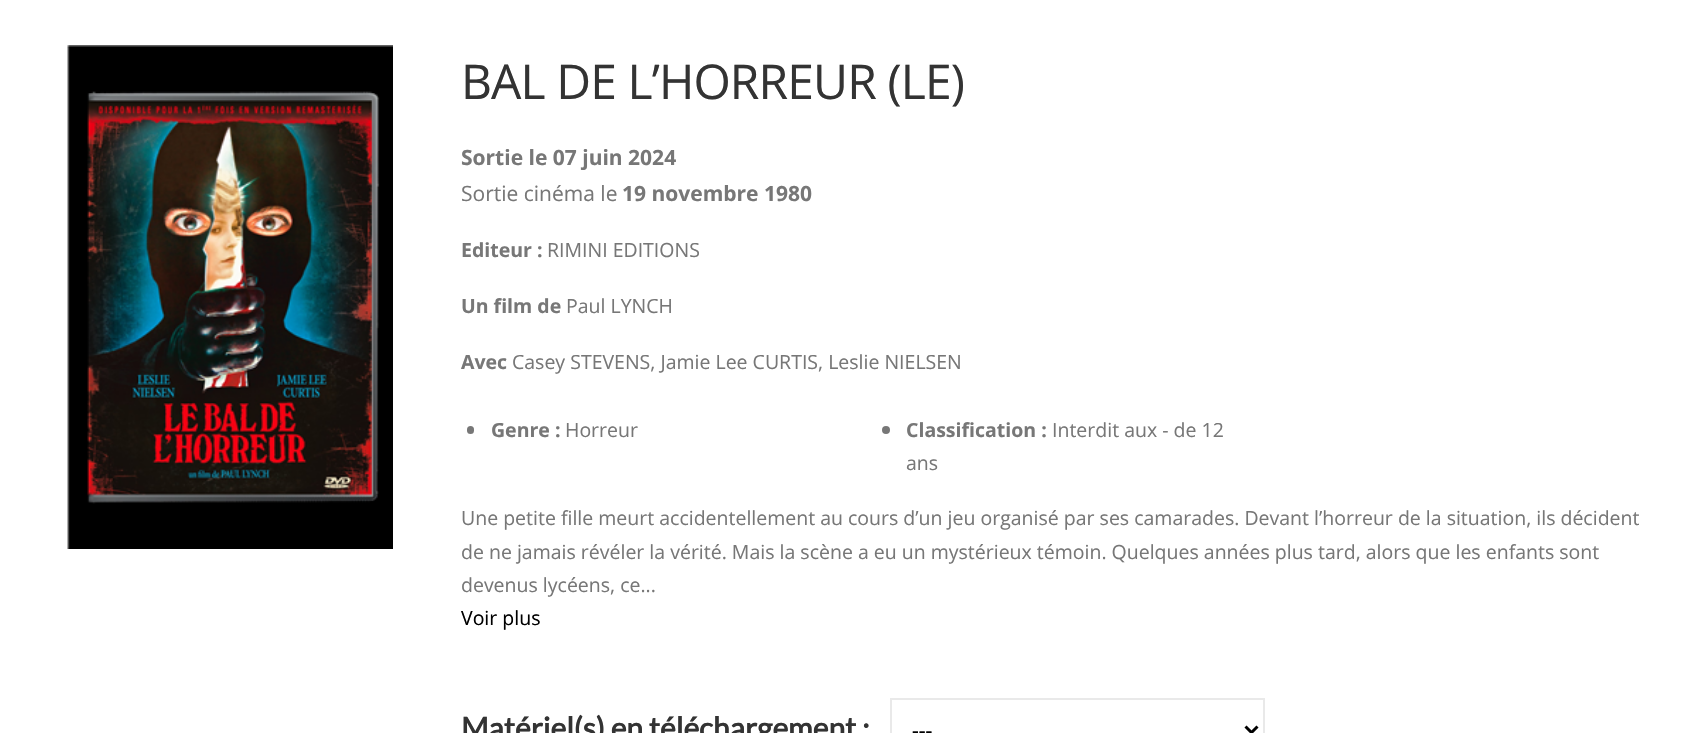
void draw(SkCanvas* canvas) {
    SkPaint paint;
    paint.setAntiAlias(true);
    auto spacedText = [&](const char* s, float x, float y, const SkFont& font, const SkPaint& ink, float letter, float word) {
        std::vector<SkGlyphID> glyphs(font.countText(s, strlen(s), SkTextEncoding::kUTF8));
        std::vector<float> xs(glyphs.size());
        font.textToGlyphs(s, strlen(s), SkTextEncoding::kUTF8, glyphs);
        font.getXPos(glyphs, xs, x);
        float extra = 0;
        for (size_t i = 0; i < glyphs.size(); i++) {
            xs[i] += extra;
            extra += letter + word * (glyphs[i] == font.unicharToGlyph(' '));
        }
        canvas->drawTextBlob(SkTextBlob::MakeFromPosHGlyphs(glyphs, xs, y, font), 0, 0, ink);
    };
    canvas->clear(0xFFFFFFFF);
    canvas->drawImageRect(SkImages::DeferredFromEncodedData(SkData::MakeFromFileName("img1.png")), SkRect::MakeXYWH(67, 45, 326, 504), SkSamplingOptions());
    SkFont font1(fontMgr->matchFamilyStyle("Open Sans", SkFontStyle::Normal()), 48);
    font1.setSubpixel(true);
    paint.setColor(0xFF333333);
    spacedText("BAL DE L’HORREUR (LE)", 461, 99, font1, paint, -0.9f, 0);
    SkFont font2(fontMgr->matchFamilyStyle("Open Sans", SkFontStyle::Bold()), 21);
    font2.setSubpixel(true);
    paint.setColor(0xFF777777);
    canvas->drawString("Sortie le 07 juin 2024", 461, 165, font2, paint);
    SkFont font3(fontMgr->matchFamilyStyle("Open Sans", SkFontStyle::Normal()), 21);
    font3.setSubpixel(true);
    canvas->drawString("Sortie cinéma le", 461, 201, font3, paint);
    canvas->drawString("19 novembre 1980", 622, 201, font2, paint);
    SkFont font4(fontMgr->matchFamilyStyle("Open Sans", SkFontStyle::Bold()), 19.5f);
    font4.setSubpixel(true);
    canvas->drawString("Editeur :", 461, 257, font4, paint);
    SkFont font5(fontMgr->matchFamilyStyle("Open Sans", SkFontStyle::Normal()), 19.5f);
    font5.setSubpixel(true);
    canvas->drawString("RIMINI EDITIONS", 547, 257, font5, paint);
    canvas->drawString("Un film de", 461, 313, font4, paint);
    canvas->drawString("Paul LYNCH", 566, 313, font5, paint);
    canvas->drawString("Avec", 461, 369, font4, paint);
    canvas->drawString("Casey STEVENS, Jamie Lee CURTIS, Leslie NIELSEN", 512, 369, font5, paint);
    canvas->drawRoundRect(SkRect::MakeXYWH(467, 426, 7, 8), 3.5f, 3.5f, paint);
    canvas->drawString("Genre :", 491, 437, font4, paint);
    canvas->drawString("Horreur", 565, 437, font5, paint);
    canvas->drawCircle(886, 430, 4, paint);
    canvas->drawString("Classification :", 906, 437, font4, paint);
    canvas->drawString("Interdit aux - de 12", 1052, 437, font5, paint);
    canvas->drawString("ans", 906, 470, font5, paint);
    canvas->drawString("Une petite fille meurt accidentellement au cours d’un jeu organisé par ses camarades. Devant l’horreur de la situation, ils décident", 461, 525, font5, paint);
    canvas->drawString("de ne jamais révéler la vérité. Mais la scène a eu un mystérieux témoin. Quelques années plus tard, alors que les enfants sont", 461, 559, font5, paint);
    canvas->drawString("devenus lycéens, ce...", 461, 592, font5, paint);
    paint.setColor(0xFF000000);
    canvas->drawString("Voir plus", 461, 625, font5, paint);
    SkFont font6(fontMgr->matchFamilyStyle("Lato", SkFontStyle::Bold()), 30);
    font6.setSubpixel(true);
    paint.setColor(0xFF333333);
    canvas->drawString("Matériel(s) en téléchargement :", 461, 739, font6, paint);
    paint.setStyle(SkPaint::kStroke_Style);
    paint.setStrokeWidth(2);
    paint.setColor(0xFFE9E9E9);
    canvas->drawRect(SkRect::MakeXYWH(891, 699, 373, 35), paint);
    paint.setStrokeWidth(3);
    paint.setColor(0xFF000000);
    canvas->drawPath(SkPathBuilder().moveTo(1245.5f, 726.5f).lineTo(1251.5f, 732.5f).lineTo(1257.5f, 726.5f).detach(), paint);
    SkFont font7(fontMgr->matchFamilyStyle("Open Sans", SkFontStyle(600, SkFontStyle::kNormal_Width, SkFontStyle::kUpright_Slant)), 21);
    font7.setSubpixel(true);
    paint.setStyle(SkPaint::kFill_Style);
    canvas->drawString("---", 912, 738, font7, paint);
}
